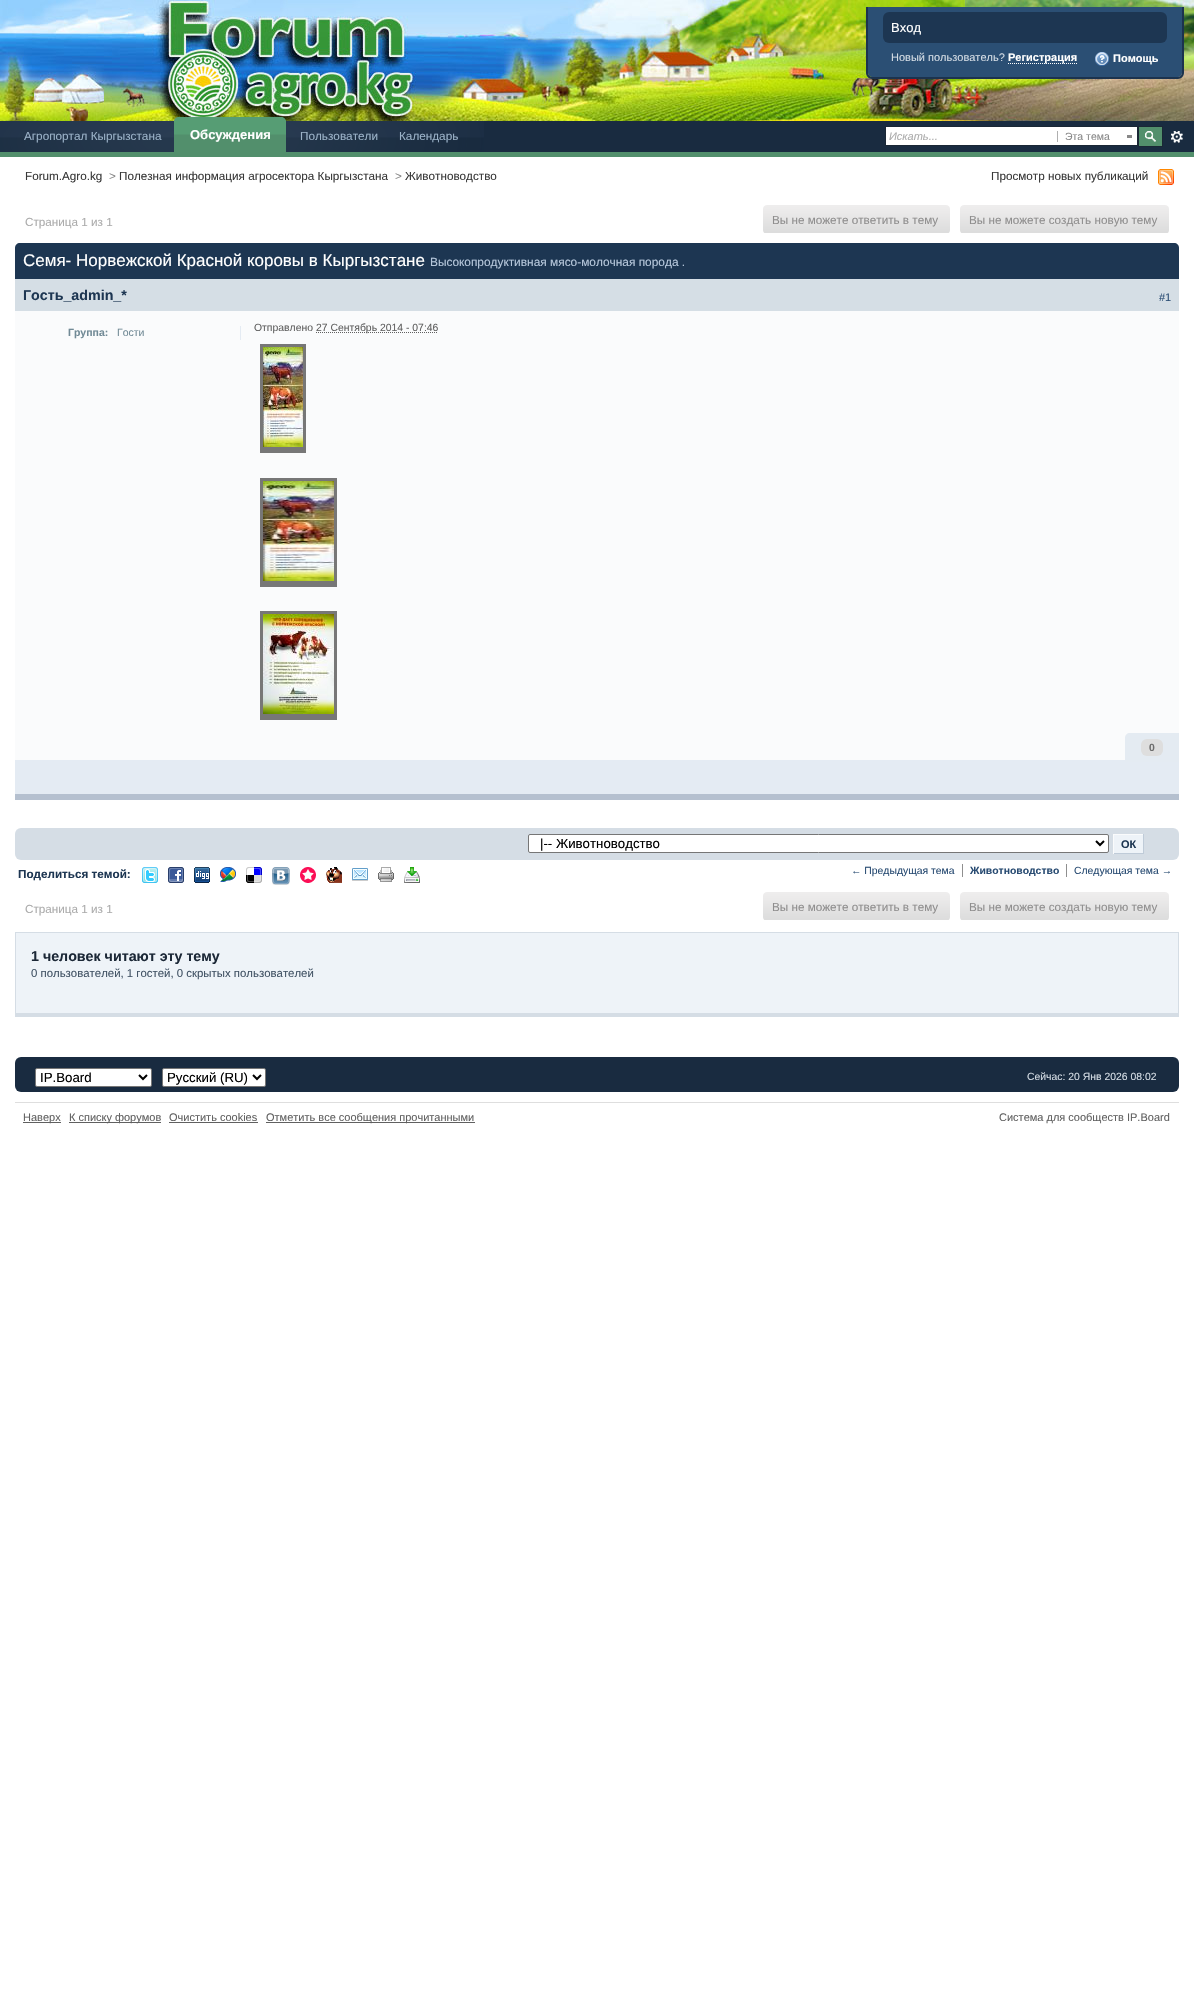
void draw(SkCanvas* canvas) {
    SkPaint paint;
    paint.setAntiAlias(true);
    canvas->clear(0xFFFFFFFF);
    canvas->drawImageRect(SkImages::DeferredFromEncodedData(SkData::MakeFromFileName("img1.png")), SkRect::MakeXYWH(0, 0, 1194, 121), SkSamplingOptions());
    paint.setColor(0xFF2B4F74);
    canvas->drawPath(SkPathBuilder().moveTo(868, 7).lineTo(1182, 7).lineTo(1182, 73).cubicTo(1182, 75, 1180, 77, 1178, 77).lineTo(872, 77).cubicTo(870, 77, 868, 75, 868, 73).close().detach(), paint);
    paint.setColor(0xFF1C334E);
    canvas->drawPath(SkPathBuilder(SkPathFillType::kEvenOdd).moveTo(866, 7).lineTo(1184, 7).lineTo(1184, 73).cubicTo(1184, 76, 1181, 79, 1178, 79).lineTo(872, 79).cubicTo(869, 79, 866, 76, 866, 73).close().moveTo(868, 7).lineTo(1182, 7).lineTo(1182, 73).cubicTo(1182, 75, 1180, 77, 1178, 77).lineTo(872, 77).cubicTo(870, 77, 868, 75, 868, 73).close().detach(), paint);
    paint.setColor(0xFF1D3652);
    canvas->drawRoundRect(SkRect::MakeXYWH(883, 12, 284, 31), 6, 6, paint);
    SkFont font1(fontMgr->matchFamilyStyle("Liberation Sans", SkFontStyle::Normal()), 13);
    font1.setSubpixel(true);
    paint.setColor(0xFFFFFFFF);
    canvas->drawString("Вход", 891, 32, font1, paint);
    SkFont font2(fontMgr->matchFamilyStyle("Liberation Sans", SkFontStyle::Normal()), 11);
    font2.setSubpixel(true);
    paint.setColor(0xFFD5DDE5);
    canvas->drawString("Новый пользователь?", 891, 61, font2, paint);
    paint.setStyle(SkPaint::kStroke_Style);
    paint.setStrokeWidth(1);
    paint.setColor(0xFFFFFFFF);
    paint.setPathEffect(SkDashPathEffect::Make({{1, 1}}, 0));
    canvas->drawPath(SkPathBuilder().moveTo(1008, 63.5f).lineTo(1077, 63.5f).detach(), paint);
    paint.setPathEffect(nullptr);
    SkFont font3(fontMgr->matchFamilyStyle("Liberation Sans", SkFontStyle::Bold()), 11);
    font3.setSubpixel(true);
    paint.setStyle(SkPaint::kFill_Style);
    canvas->drawString("Регистрация", 1008, 61, font3, paint);
    canvas->drawImageRect(SkImages::DeferredFromEncodedData(SkData::MakeFromFileName("img2.png")), SkRect::MakeXYWH(1095, 52, 14, 14), SkSamplingOptions());
    canvas->drawString("Помощь", 1113, 62, font3, paint);
    paint.setColor(0xFF192B40);
    canvas->drawRect(SkRect::MakeXYWH(484, 121, 710, 31), paint);
    canvas->drawImageRect(SkImages::DeferredFromEncodedData(SkData::MakeFromFileName("img3.png")), SkRect::MakeXYWH(0, 121, 484, 31), SkSamplingOptions());
    paint.setColor(0xFF528F6C);
    canvas->drawRect(SkRect::MakeXYWH(0, 152, 1194, 5), paint);
    SkFont font4(fontMgr->matchFamilyStyle("Liberation Sans", SkFontStyle::Normal()), 11.75f);
    font4.setSubpixel(true);
    paint.setColor(0xFF9BB2C8);
    canvas->drawString("Агропортал Кыргызстана", 24, 140, font4, paint);
    canvas->drawImageRect(SkImages::DeferredFromEncodedData(SkData::MakeFromFileName("img4.png")), SkRect::MakeXYWH(174, 117, 6, 35), SkSamplingOptions());
    canvas->drawImageRect(SkImages::DeferredFromEncodedData(SkData::MakeFromFileName("img5.png")), SkRect::MakeXYWH(180, 117, 106, 35), SkSamplingOptions());
    SkFont font5(fontMgr->matchFamilyStyle("Liberation Sans", SkFontStyle::Bold()), 13);
    font5.setSubpixel(true);
    paint.setColor(0xFFFFFFFF);
    canvas->drawString("Обсуждения", 190, 139, font5, paint);
    paint.setColor(0xFF9BB2C8);
    canvas->drawString("Пользователи", 300, 140, font4, paint);
    canvas->drawString("Календарь", 399, 140, font4, paint);
    paint.setColor(0xFFFFFFFF);
    canvas->drawRect(SkRect::MakeXYWH(885.5f, 126.5f, 252, 19), paint);
    paint.setStyle(SkPaint::kStroke_Style);
    paint.setColor(0xFF1A2735);
    canvas->drawRect(SkRect::MakeXYWH(885.5f, 126.5f, 252, 19), paint);
    SkFont font6(fontMgr->matchFamilyStyle("Liberation Sans", SkFontStyle::Italic()), 11);
    font6.setSubpixel(true);
    paint.setStyle(SkPaint::kFill_Style);
    paint.setColor(0xFFACACAC);
    canvas->drawString("Искать...", 889, 140, font6, paint);
    paint.setColor(0xFF888888);
    canvas->drawRect(SkRect::MakeXYWH(1127, 135, 5, 3), paint);
    paint.setColor(0xFFAFAFAF);
    canvas->drawRect(SkRect::MakeXYWH(1057, 131, 1, 11), paint);
    SkFont font7(fontMgr->matchFamilyStyle("Liberation Sans", SkFontStyle::Normal()), 10.5f);
    font7.setSubpixel(true);
    paint.setColor(0xFF878787);
    canvas->drawString("Эта тема", 1065, 140, font7, paint);
    paint.setColor(0xFF528F6C);
    canvas->drawRect(SkRect::MakeXYWH(1139, 127, 23, 19), paint);
    canvas->drawImageRect(SkImages::DeferredFromEncodedData(SkData::MakeFromFileName("img6.png")), SkRect::MakeXYWH(1145, 131, 11, 11), SkSamplingOptions());
    paint.setStyle(SkPaint::kStroke_Style);
    paint.setColor(0xFF1A2735);
    canvas->drawRect(SkRect::MakeXYWH(1138.5f, 126.5f, 24, 20), paint);
    canvas->drawImageRect(SkImages::DeferredFromEncodedData(SkData::MakeFromFileName("img7.png")), SkRect::MakeXYWH(1171, 131, 12, 12), SkSamplingOptions());
    SkFont font8(fontMgr->matchFamilyStyle("Liberation Sans", SkFontStyle::Normal()), 11.7f);
    font8.setSubpixel(true);
    paint.setStyle(SkPaint::kFill_Style);
    paint.setColor(0xFF393939);
    canvas->drawString("Forum.Agro.kg", 25, 180, font8, paint);
    paint.setColor(0xFF878787);
    canvas->drawString(">", 109, 180, font8, paint);
    paint.setColor(0xFF393939);
    canvas->drawString("Полезная информация агросектора Кыргызстана", 119, 180, font8, paint);
    paint.setColor(0xFF878787);
    canvas->drawString(">", 395, 180, font8, paint);
    paint.setColor(0xFF393939);
    canvas->drawString("Животноводство", 405, 180, font8, paint);
    canvas->drawString("Просмотр новых публикаций", 991, 180, font8, paint);
    canvas->drawImageRect(SkImages::DeferredFromEncodedData(SkData::MakeFromFileName("img8.png")), SkRect::MakeXYWH(1158, 169, 16, 16), SkSamplingOptions());
    paint.setColor(0xFFACACAC);
    canvas->drawString("Страница 1 из 1", 25, 226, font8, paint);
    canvas->drawImageRect(SkImages::DeferredFromEncodedData(SkData::MakeFromFileName("img9.png")), SkRect::MakeXYWH(763, 205, 6, 28), SkSamplingOptions());
    canvas->drawImageRect(SkImages::DeferredFromEncodedData(SkData::MakeFromFileName("img10.png")), SkRect::MakeXYWH(769, 205, 181, 28), SkSamplingOptions());
    paint.setColor(0xFF8F8E8E);
    canvas->drawString("Вы не можете ответить в тему", 772, 224, font8, paint);
    canvas->drawImageRect(SkImages::DeferredFromEncodedData(SkData::MakeFromFileName("img9.png")), SkRect::MakeXYWH(960, 205, 6, 28), SkSamplingOptions());
    canvas->drawImageRect(SkImages::DeferredFromEncodedData(SkData::MakeFromFileName("img11.png")), SkRect::MakeXYWH(966, 205, 203, 28), SkSamplingOptions());
    canvas->drawString("Вы не можете создать новую тему", 969, 224, font8, paint);
    paint.setColor(0xFF1D3652);
    canvas->drawPath(SkPathBuilder().moveTo(20, 243).lineTo(1174, 243).cubicTo(1177, 243, 1179, 245, 1179, 248).lineTo(1179, 279).lineTo(15, 279).lineTo(15, 248).cubicTo(15, 245, 17, 243, 20, 243).close().detach(), paint);
    SkFont font9(fontMgr->matchFamilyStyle("Liberation Sans", SkFontStyle::Normal()), 17);
    font9.setSubpixel(true);
    paint.setColor(0xFFFFFFFF);
    canvas->drawString("Семя- Норвежской Красной коровы в Кыргызстане", 23, 266, font9, paint);
    SkFont font10(fontMgr->matchFamilyStyle("Liberation Sans", SkFontStyle::Normal()), 11.9f);
    font10.setSubpixel(true);
    paint.setColor(0xFFB6C7DB);
    canvas->drawString("Высокопродуктивная мясо-молочная порода .", 430, 266, font10, paint);
    paint.setColor(0xFFFAFBFC);
    canvas->drawRect(SkRect::MakeXYWH(15, 311, 1164, 449), paint);
    paint.setColor(0xFFB5C0CF);
    canvas->drawRect(SkRect::MakeXYWH(15, 794, 1164, 6), paint);
    paint.setColor(0xFFD5DEE5);
    canvas->drawRect(SkRect::MakeXYWH(15, 279, 1164, 32), paint);
    SkFont font11(fontMgr->matchFamilyStyle("Liberation Sans", SkFontStyle::Bold()), 14.25f);
    font11.setSubpixel(true);
    paint.setColor(0xFF1D3652);
    canvas->drawString("Гость_admin_*", 23, 300, font11, paint);
    paint.setColor(0xFF284B72);
    canvas->drawString("#1", 1159, 301, font2, paint);
    paint.setColor(0xFFE4EBF3);
    canvas->drawRect(SkRect::MakeXYWH(240, 326, 1, 14), paint);
    SkFont font12(fontMgr->matchFamilyStyle("Liberation Sans", SkFontStyle::Bold()), 10.5f);
    font12.setSubpixel(true);
    paint.setColor(0xFF718A96);
    canvas->drawString("Группа:", 68, 336, font12, paint);
    canvas->drawString("Гости", 117, 336, font7, paint);
    SkFont font13(fontMgr->matchFamilyStyle("Liberation Sans", SkFontStyle::Normal()), 10.4f);
    font13.setSubpixel(true);
    paint.setColor(0xFF606060);
    canvas->drawString("Отправлено", 254, 331, font13, paint);
    paint.setStyle(SkPaint::kStroke_Style);
    paint.setPathEffect(SkDashPathEffect::Make({{1, 1}}, 0));
    canvas->drawPath(SkPathBuilder().moveTo(316, 332.5f).lineTo(438, 332.5f).detach(), paint);
    paint.setPathEffect(nullptr);
    paint.setStyle(SkPaint::kFill_Style);
    canvas->drawString("27 Сентябрь 2014 - 07:46", 316, 331, font13, paint);
    paint.setColor(0xFF777777);
    canvas->drawRect(SkRect::MakeXYWH(260, 344, 46, 3), paint);
    canvas->drawRect(SkRect::MakeXYWH(303, 344, 3, 109), paint);
    canvas->drawRect(SkRect::MakeXYWH(260, 447, 46, 6), paint);
    canvas->drawRect(SkRect::MakeXYWH(260, 344, 3, 109), paint);
    canvas->drawImageRect(SkImages::DeferredFromEncodedData(SkData::MakeFromFileName("img12.png")), SkRect::MakeXYWH(263, 347, 40, 100), SkSamplingOptions());
    canvas->drawRect(SkRect::MakeXYWH(260, 478, 77, 3), paint);
    canvas->drawRect(SkRect::MakeXYWH(334, 478, 3, 109), paint);
    canvas->drawRect(SkRect::MakeXYWH(260, 581, 77, 6), paint);
    canvas->drawRect(SkRect::MakeXYWH(260, 478, 3, 109), paint);
    canvas->drawImageRect(SkImages::DeferredFromEncodedData(SkData::MakeFromFileName("img13.png")), SkRect::MakeXYWH(263, 481, 71, 100), SkSamplingOptions());
    canvas->drawRect(SkRect::MakeXYWH(260, 611, 77, 3), paint);
    canvas->drawRect(SkRect::MakeXYWH(334, 611, 3, 109), paint);
    canvas->drawRect(SkRect::MakeXYWH(260, 714, 77, 6), paint);
    canvas->drawRect(SkRect::MakeXYWH(260, 611, 3, 109), paint);
    canvas->drawImageRect(SkImages::DeferredFromEncodedData(SkData::MakeFromFileName("img14.png")), SkRect::MakeXYWH(263, 614, 71, 100), SkSamplingOptions());
    paint.setColor(0xFFE4EBF3);
    canvas->drawRect(SkRect::MakeXYWH(15, 760, 1164, 34), paint);
    paint.setColor(0xFFE4EBF2);
    canvas->drawPath(SkPathBuilder().moveTo(1130, 733).lineTo(1179, 733).lineTo(1179, 762).lineTo(1125, 762).lineTo(1125, 738).cubicTo(1125, 735, 1127, 733, 1130, 733).close().detach(), paint);
    paint.setColor(0xFFDEDEDE);
    canvas->drawRoundRect(SkRect::MakeXYWH(1141, 739, 22, 17), 6, 6, paint);
    SkFont font14(fontMgr->matchFamilyStyle("Liberation Sans", SkFontStyle::Bold()), 10.4f);
    font14.setSubpixel(true);
    paint.setColor(0xFF6E6E6E);
    canvas->drawString("0", 1149, 751, font14, paint);
    paint.setColor(0xFFD5DDE5);
    canvas->drawRoundRect(SkRect::MakeXYWH(15, 828, 1164, 32), 6, 6, paint);
    paint.setColor(0xFFFFFFFF);
    canvas->drawRoundRect(SkRect::MakeXYWH(528.5f, 834.5f, 580, 18), 1.5f, 1.5f, paint);
    paint.setStyle(SkPaint::kStroke_Style);
    paint.setColor(0xFF767676);
    canvas->drawRoundRect(SkRect::MakeXYWH(528.5f, 834.5f, 580, 18), 1.5f, 1.5f, paint);
    paint.setStrokeWidth(2);
    paint.setColor(0xFF000000);
    canvas->drawPath(SkPathBuilder().moveTo(1096, 841).lineTo(1100, 845).lineTo(1104, 841).detach(), paint);
    SkFont font15(fontMgr->matchFamilyStyle("Liberation Sans", SkFontStyle::Normal()), 13.25f);
    font15.setSubpixel(true);
    paint.setStyle(SkPaint::kFill_Style);
    canvas->drawString("|-- Животноводство", 540, 848, font15, paint);
    paint.setColor(0xFFEEF3F8);
    canvas->drawRect(SkRect::MakeXYWH(1114, 835, 29, 18), paint);
    paint.setColor(0xFFFAFBFC);
    canvas->drawRect(SkRect::MakeXYWH(1113, 834, 31, 1), paint);
    paint.setColor(0xFFBFCBD8);
    canvas->drawRect(SkRect::MakeXYWH(1143, 834, 1, 20), paint);
    canvas->drawRect(SkRect::MakeXYWH(1113, 853, 31, 1), paint);
    paint.setColor(0xFFFAFBFC);
    canvas->drawRect(SkRect::MakeXYWH(1113, 834, 1, 20), paint);
    paint.setColor(0xFF1D3652);
    canvas->drawString("ОК", 1121, 848, font3, paint);
    SkFont font16(fontMgr->matchFamilyStyle("Liberation Sans", SkFontStyle::Bold()), 11.7f);
    font16.setSubpixel(true);
    canvas->drawString("Поделиться темой:", 18, 878, font16, paint);
    canvas->drawImageRect(SkImages::DeferredFromEncodedData(SkData::MakeFromFileName("img15.png")), SkRect::MakeXYWH(142, 867, 16, 16), SkSamplingOptions());
    canvas->drawImageRect(SkImages::DeferredFromEncodedData(SkData::MakeFromFileName("img16.png")), SkRect::MakeXYWH(168, 867, 16, 16), SkSamplingOptions());
    canvas->drawImageRect(SkImages::DeferredFromEncodedData(SkData::MakeFromFileName("img17.png")), SkRect::MakeXYWH(194, 867, 16, 16), SkSamplingOptions());
    canvas->drawImageRect(SkImages::DeferredFromEncodedData(SkData::MakeFromFileName("img18.png")), SkRect::MakeXYWH(220, 867, 16, 15), SkSamplingOptions());
    canvas->drawImageRect(SkImages::DeferredFromEncodedData(SkData::MakeFromFileName("img19.png")), SkRect::MakeXYWH(246, 867, 16, 16), SkSamplingOptions());
    canvas->drawImageRect(SkImages::DeferredFromEncodedData(SkData::MakeFromFileName("img20.png")), SkRect::MakeXYWH(272, 867, 18, 18), SkSamplingOptions());
    canvas->drawImageRect(SkImages::DeferredFromEncodedData(SkData::MakeFromFileName("img21.png")), SkRect::MakeXYWH(300, 867, 16, 16), SkSamplingOptions());
    canvas->drawImageRect(SkImages::DeferredFromEncodedData(SkData::MakeFromFileName("img22.png")), SkRect::MakeXYWH(326, 867, 16, 16), SkSamplingOptions());
    canvas->drawImageRect(SkImages::DeferredFromEncodedData(SkData::MakeFromFileName("img23.png")), SkRect::MakeXYWH(352, 868, 16, 13), SkSamplingOptions());
    canvas->drawImageRect(SkImages::DeferredFromEncodedData(SkData::MakeFromFileName("img24.png")), SkRect::MakeXYWH(378, 867, 16, 15), SkSamplingOptions());
    canvas->drawImageRect(SkImages::DeferredFromEncodedData(SkData::MakeFromFileName("img25.png")), SkRect::MakeXYWH(404, 867, 16, 16), SkSamplingOptions());
    paint.setColor(0xFF8F8F8F);
    canvas->drawRect(SkRect::MakeXYWH(962, 864, 1, 13), paint);
    paint.setColor(0xFF284B72);
    canvas->drawString("← Предыдущая тема", 851, 874, font13, paint);
    canvas->drawString("Животноводство", 970, 874, font14, paint);
    paint.setColor(0xFF8F8F8F);
    canvas->drawRect(SkRect::MakeXYWH(1066, 864, 1, 13), paint);
    paint.setColor(0xFF284B72);
    canvas->drawString("Следующая тема →", 1074, 874, font13, paint);
    paint.setColor(0xFFACACAC);
    canvas->drawString("Страница 1 из 1", 25, 913, font8, paint);
    canvas->drawImageRect(SkImages::DeferredFromEncodedData(SkData::MakeFromFileName("img9.png")), SkRect::MakeXYWH(763, 892, 6, 28), SkSamplingOptions());
    canvas->drawImageRect(SkImages::DeferredFromEncodedData(SkData::MakeFromFileName("img10.png")), SkRect::MakeXYWH(769, 892, 181, 28), SkSamplingOptions());
    paint.setColor(0xFF8F8E8E);
    canvas->drawString("Вы не можете ответить в тему", 772, 911, font8, paint);
    canvas->drawImageRect(SkImages::DeferredFromEncodedData(SkData::MakeFromFileName("img9.png")), SkRect::MakeXYWH(960, 892, 6, 28), SkSamplingOptions());
    canvas->drawImageRect(SkImages::DeferredFromEncodedData(SkData::MakeFromFileName("img11.png")), SkRect::MakeXYWH(966, 892, 203, 28), SkSamplingOptions());
    canvas->drawString("Вы не можете создать новую тему", 969, 911, font8, paint);
    paint.setColor(0xFFEEF3F8);
    canvas->drawRect(SkRect::MakeXYWH(16, 933, 1162, 80), paint);
    paint.setColor(0xFFD5DDE5);
    canvas->drawRect(SkRect::MakeXYWH(15, 932, 1164, 1), paint);
    canvas->drawRect(SkRect::MakeXYWH(1178, 932, 1, 85), paint);
    canvas->drawRect(SkRect::MakeXYWH(15, 1013, 1164, 4), paint);
    canvas->drawRect(SkRect::MakeXYWH(15, 932, 1, 85), paint);
    paint.setColor(0xFF1C2837);
    canvas->drawString("1 человек читают эту тему", 31, 961, font11, paint);
    SkFont font17(fontMgr->matchFamilyStyle("Liberation Sans", SkFontStyle::Normal()), 11.4f);
    font17.setSubpixel(true);
    paint.setColor(0xFF425365);
    canvas->drawString("0 пользователей, 1 гостей, 0 скрытых пользователей", 31, 977, font17, paint);
    paint.setColor(0xFF192B40);
    canvas->drawRoundRect(SkRect::MakeXYWH(15, 1057, 1164, 35), 6, 6, paint);
    paint.setColor(0xFFFFFFFF);
    canvas->drawRoundRect(SkRect::MakeXYWH(35.5f, 1068.5f, 116, 18), 1.5f, 1.5f, paint);
    paint.setStyle(SkPaint::kStroke_Style);
    paint.setStrokeWidth(1);
    paint.setColor(0xFF767676);
    canvas->drawRoundRect(SkRect::MakeXYWH(35.5f, 1068.5f, 116, 18), 1.5f, 1.5f, paint);
    paint.setStrokeWidth(2);
    paint.setColor(0xFF000000);
    canvas->drawPath(SkPathBuilder().moveTo(139, 1075).lineTo(143, 1079).lineTo(147, 1075).detach(), paint);
    paint.setStyle(SkPaint::kFill_Style);
    canvas->drawString("IP.Board", 40, 1082, font15, paint);
    paint.setColor(0xFFFFFFFF);
    canvas->drawRoundRect(SkRect::MakeXYWH(162.5f, 1068.5f, 103, 18), 1.5f, 1.5f, paint);
    paint.setStyle(SkPaint::kStroke_Style);
    paint.setStrokeWidth(1);
    paint.setColor(0xFF767676);
    canvas->drawRoundRect(SkRect::MakeXYWH(162.5f, 1068.5f, 103, 18), 1.5f, 1.5f, paint);
    paint.setStrokeWidth(2);
    paint.setColor(0xFF000000);
    canvas->drawPath(SkPathBuilder().moveTo(253, 1075).lineTo(257, 1079).lineTo(261, 1075).detach(), paint);
    paint.setStyle(SkPaint::kFill_Style);
    canvas->drawString("Русский (RU)", 167, 1082, font15, paint);
    paint.setColor(0xFFD5DDE5);
    canvas->drawString("Сейчас: 20 Янв 2026 08:02", 1027, 1080, font13, paint);
    paint.setColor(0xFFDEDEDE);
    canvas->drawRect(SkRect::MakeXYWH(15, 1102, 1164, 1), paint);
    paint.setColor(0xFF606060);
    canvas->drawRect(SkRect::MakeXYWH(23, 1122, 38, 1), paint);
    canvas->drawString("Наверх", 23, 1121, font2, paint);
    canvas->drawRect(SkRect::MakeXYWH(69, 1122, 92, 1), paint);
    canvas->drawString("К списку форумов", 69, 1121, font2, paint);
    canvas->drawString("Очистить cookies", 169, 1121, font2, paint);
    canvas->drawRect(SkRect::MakeXYWH(169, 1122, 89, 1), paint);
    canvas->drawRect(SkRect::MakeXYWH(266, 1122, 209, 1), paint);
    canvas->drawString("Отметить все сообщения прочитанными", 266, 1121, font2, paint);
    canvas->drawString("Система для сообществ IP.Board", 999, 1121, font2, paint);
}
